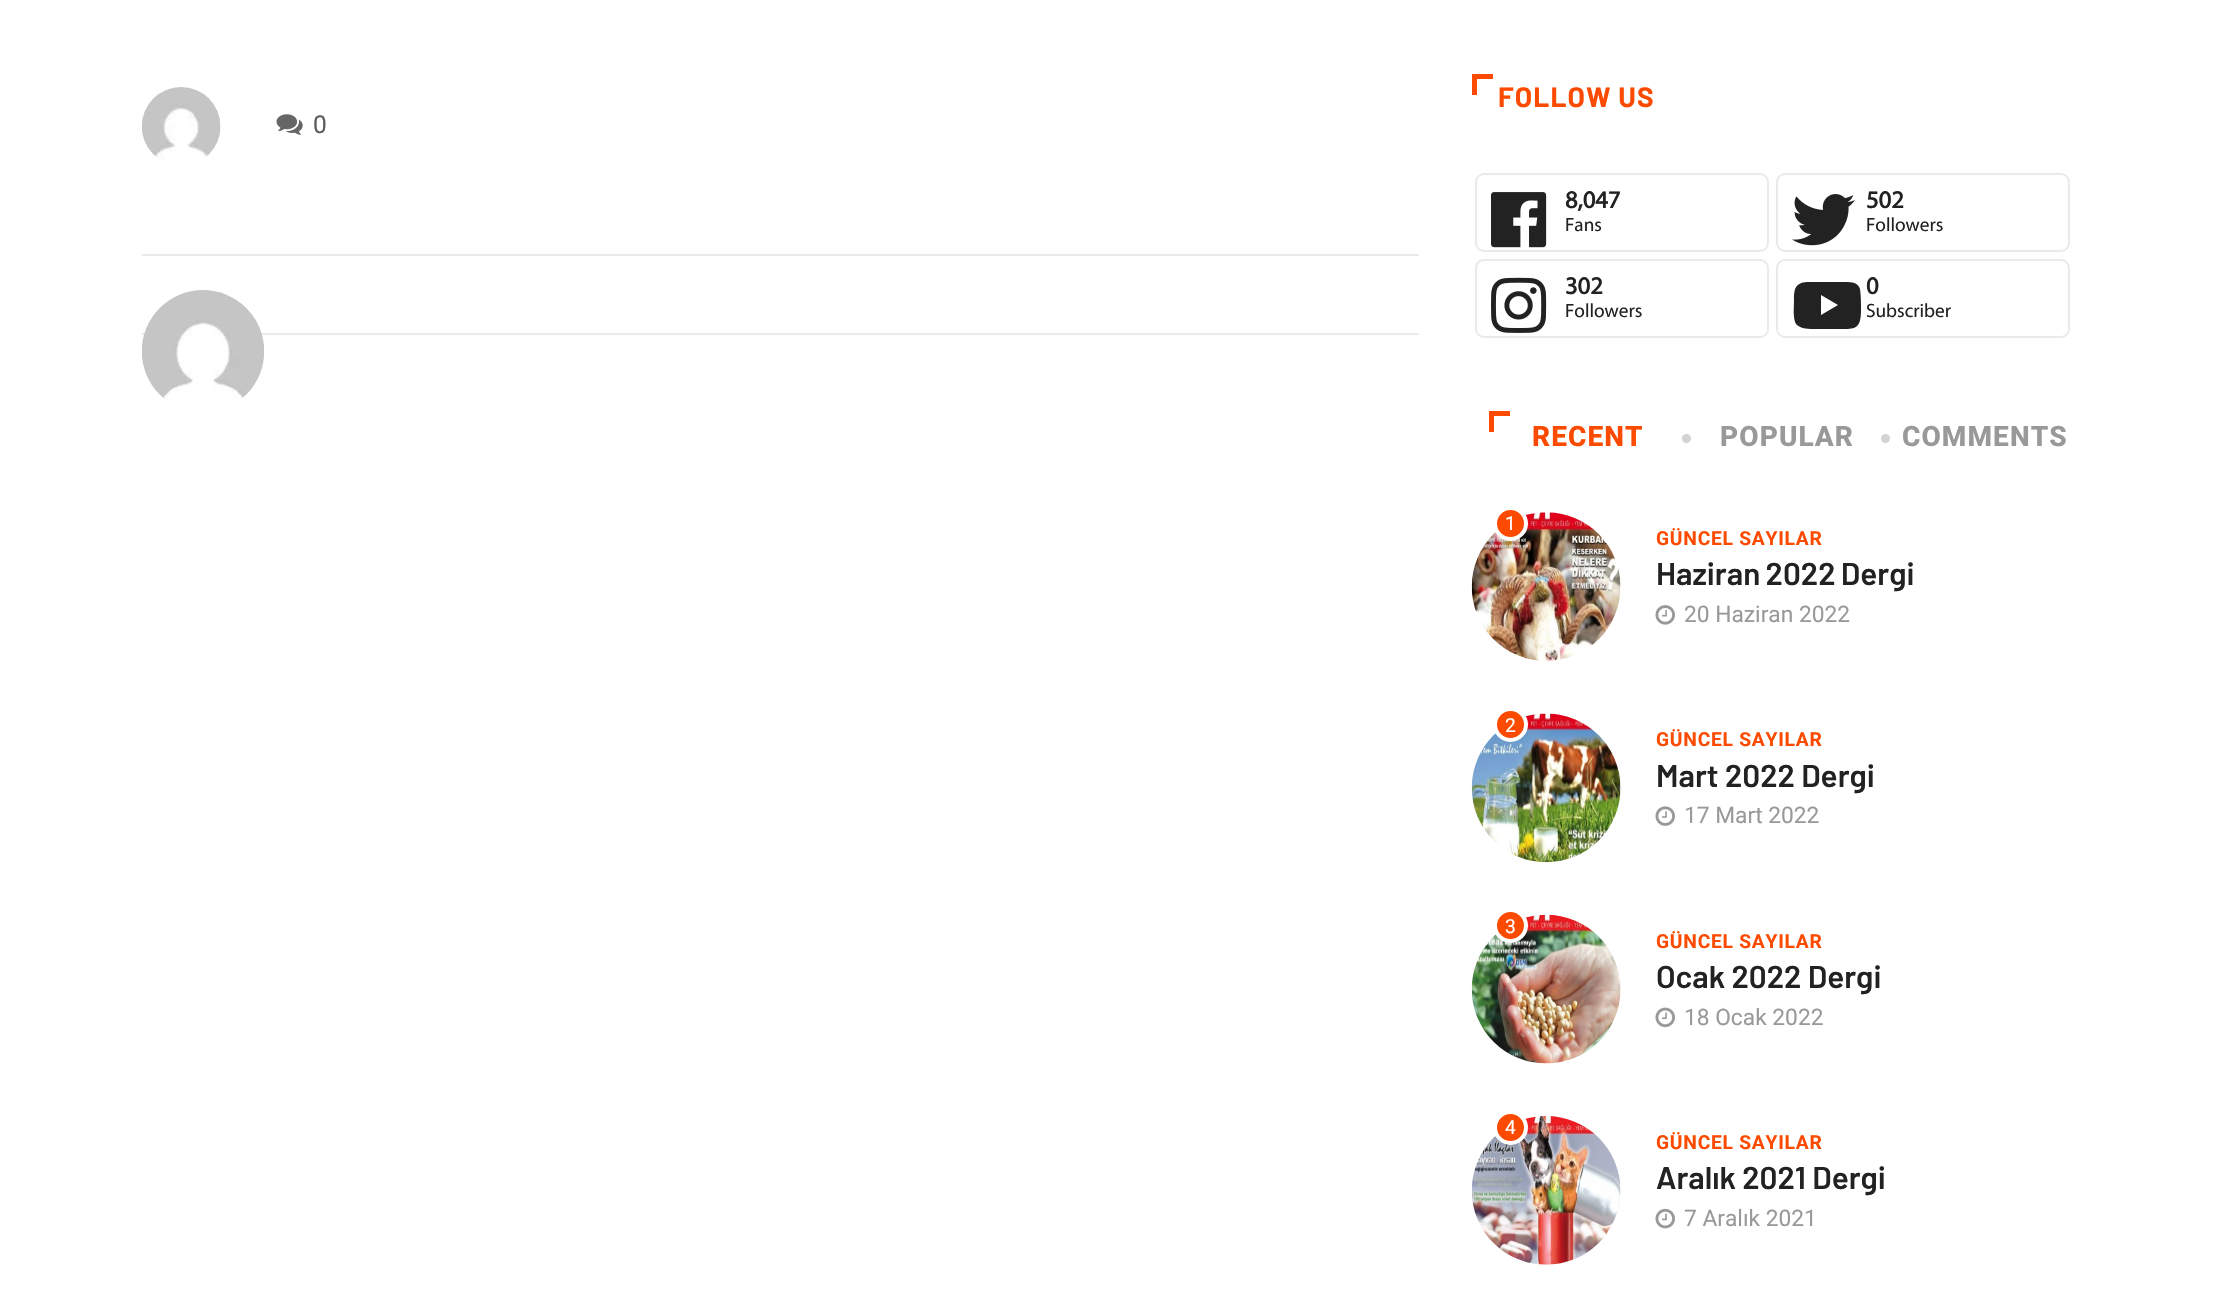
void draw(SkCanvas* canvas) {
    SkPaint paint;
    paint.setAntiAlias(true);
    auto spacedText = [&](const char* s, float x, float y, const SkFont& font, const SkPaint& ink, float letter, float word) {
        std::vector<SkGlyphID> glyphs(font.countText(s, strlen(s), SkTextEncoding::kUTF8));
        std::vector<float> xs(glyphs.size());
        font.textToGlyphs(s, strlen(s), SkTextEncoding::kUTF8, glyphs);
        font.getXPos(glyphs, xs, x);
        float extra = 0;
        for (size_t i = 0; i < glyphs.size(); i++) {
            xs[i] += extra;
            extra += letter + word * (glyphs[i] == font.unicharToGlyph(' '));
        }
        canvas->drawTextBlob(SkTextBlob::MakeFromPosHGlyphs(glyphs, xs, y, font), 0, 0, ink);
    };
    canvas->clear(0xFFFFFFFF);
    canvas->drawImageRect(SkImages::DeferredFromEncodedData(SkData::MakeFromFileName("img1.png")), SkRect::MakeXYWH(142, 87, 79, 74), SkSamplingOptions());
    canvas->drawImageRect(SkImages::DeferredFromEncodedData(SkData::MakeFromFileName("img2.png")), SkRect::MakeXYWH(276, 114, 27, 21), SkSamplingOptions());
    SkFont font1(fontMgr->matchFamilyStyle("Roboto", SkFontStyle::Normal()), 24.5f);
    font1.setSubpixel(true);
    paint.setColor(0xFF5C5C5C);
    canvas->drawString("0", 313, 133, font1, paint);
    paint.setColor(0xFFEAEAEA);
    canvas->drawRect(SkRect::MakeXYWH(142, 254, 1277, 2), paint);
    canvas->drawRect(SkRect::MakeXYWH(142, 333, 1277, 2), paint);
    canvas->drawImageRect(SkImages::DeferredFromEncodedData(SkData::MakeFromFileName("img3.png")), SkRect::MakeXYWH(141, 290, 124, 110), SkSamplingOptions());
    paint.setColor(0xFFFC4A00);
    canvas->drawRect(SkRect::MakeXYWH(1472, 74, 5, 21), paint);
    canvas->drawRect(SkRect::MakeXYWH(1472, 74, 21, 5), paint);
    SkFont font2(fontMgr->matchFamilyStyle("Barlow", SkFontStyle::Bold()), 28);
    font2.setSubpixel(true);
    spacedText("FOLLOW US", 1498, 107, font2, paint, 1.1f, 0);
    paint.setStyle(SkPaint::kStroke_Style);
    paint.setStrokeWidth(2);
    paint.setColor(0xFFEAEAEA);
    canvas->drawRoundRect(SkRect::MakeXYWH(1476, 174, 292, 77), 8, 8, paint);
    canvas->drawImageRect(SkImages::DeferredFromEncodedData(SkData::MakeFromFileName("img4.png")), SkRect::MakeXYWH(1491, 192, 56, 56), SkSamplingOptions());
    SkFont font3(fontMgr->matchFamilyStyle("Myriad", SkFontStyle::Bold()), 24.5f);
    font3.setSubpixel(true);
    paint.setStyle(SkPaint::kFill_Style);
    paint.setColor(0xFF222222);
    canvas->drawString("8,047", 1565, 208, font3, paint);
    SkFont font4(fontMgr->matchFamilyStyle("Myriad", SkFontStyle::Normal()), 19.25f);
    font4.setSubpixel(true);
    canvas->drawString("Fans", 1565, 231, font4, paint);
    paint.setStyle(SkPaint::kStroke_Style);
    paint.setColor(0xFFEAEAEA);
    canvas->drawRoundRect(SkRect::MakeXYWH(1777, 174, 292, 77), 8, 8, paint);
    canvas->drawImageRect(SkImages::DeferredFromEncodedData(SkData::MakeFromFileName("img5.png")), SkRect::MakeXYWH(1792, 194, 63, 52), SkSamplingOptions());
    paint.setStyle(SkPaint::kFill_Style);
    paint.setColor(0xFF222222);
    canvas->drawString("502", 1866, 208, font3, paint);
    canvas->drawString("Followers", 1866, 231, font4, paint);
    paint.setStyle(SkPaint::kStroke_Style);
    paint.setColor(0xFFEAEAEA);
    canvas->drawRoundRect(SkRect::MakeXYWH(1476, 260, 292, 77), 8, 8, paint);
    canvas->drawImageRect(SkImages::DeferredFromEncodedData(SkData::MakeFromFileName("img6.png")), SkRect::MakeXYWH(1491, 277, 56, 56), SkSamplingOptions());
    paint.setStyle(SkPaint::kFill_Style);
    paint.setColor(0xFF222222);
    canvas->drawString("302", 1565, 294, font3, paint);
    canvas->drawString("Followers", 1565, 317, font4, paint);
    paint.setStyle(SkPaint::kStroke_Style);
    paint.setColor(0xFFEAEAEA);
    canvas->drawRoundRect(SkRect::MakeXYWH(1777, 260, 292, 77), 8, 8, paint);
    paint.setStyle(SkPaint::kFill_Style);
    paint.setColor(0xFF222222);
    canvas->drawPath(SkPathBuilder().moveTo(1860, 289).cubicTo(1858, 281, 1848, 282, 1841, 282).lineTo(1822, 282).lineTo(1807, 282).cubicTo(1795, 283, 1794, 289, 1794, 300).cubicTo(1794, 307, 1793, 315, 1795, 322).cubicTo(1798, 330, 1812, 329, 1818, 329).lineTo(1835, 329).cubicTo(1854, 329, 1861, 331, 1861, 310).cubicTo(1861, 303, 1861, 296, 1860, 289).close().moveTo(1821, 315).lineTo(1821, 295).lineTo(1838, 305).close().detach(), paint);
    canvas->drawString("0", 1866, 294, font3, paint);
    canvas->drawString("Subscriber", 1866, 317, font4, paint);
    paint.setColor(0xFFFC4A00);
    canvas->drawRect(SkRect::MakeXYWH(1489, 411, 5, 21), paint);
    canvas->drawRect(SkRect::MakeXYWH(1489, 411, 21, 5), paint);
    SkFont font5(fontMgr->matchFamilyStyle("Roboto", SkFontStyle(800, SkFontStyle::kNormal_Width, SkFontStyle::kUpright_Slant)), 28);
    font5.setSubpixel(true);
    spacedText("RECENT", 1532, 446, font5, paint, 1.1f, 0);
    paint.setColor(0xFFD3D3D3);
    canvas->drawCircle(1686.5f, 438.5f, 4.5f, paint);
    paint.setColor(0xFF999999);
    spacedText("POPULAR", 1720, 446, font5, paint, 1.1f, 0);
    paint.setColor(0xFFD3D3D3);
    canvas->drawCircle(1885.5f, 438.5f, 4.5f, paint);
    paint.setColor(0xFF999999);
    spacedText("COMMENTS", 1902, 446, font5, paint, 1.1f, 0);
    canvas->drawImageRect(SkImages::DeferredFromEncodedData(SkData::MakeFromFileName("img7.png")), SkRect::MakeXYWH(1471, 512, 150, 149), SkSamplingOptions());
    paint.setColor(0xFFFC4A00);
    canvas->drawCircle(1510.5f, 523.5f, 15.5f, paint);
    paint.setStyle(SkPaint::kStroke_Style);
    paint.setStrokeWidth(4);
    paint.setColor(0xFFFFFFFF);
    canvas->drawCircle(1510.5f, 523.5f, 15.5f, paint);
    SkFont font6(fontMgr->matchFamilyStyle("Roboto", SkFontStyle::Normal()), 19.25f);
    font6.setSubpixel(true);
    paint.setStyle(SkPaint::kFill_Style);
    canvas->drawString("1", 1505, 530, font6, paint);
    SkFont font7(fontMgr->matchFamilyStyle("Roboto", SkFontStyle::Bold()), 19.25f);
    font7.setSubpixel(true);
    paint.setColor(0xFFFC4A00);
    spacedText("GÜNCEL SAYILAR", 1656, 545, font7, paint, 0.75f, 0);
    SkFont font8(fontMgr->matchFamilyStyle("Barlow", SkFontStyle(600, SkFontStyle::kNormal_Width, SkFontStyle::kUpright_Slant)), 31.5f);
    font8.setSubpixel(true);
    paint.setColor(0xFF222222);
    spacedText("Haziran 2022 Dergi", 1656, 585, font8, paint, 0, -1);
    canvas->drawImageRect(SkImages::DeferredFromEncodedData(SkData::MakeFromFileName("img8.png")), SkRect::MakeXYWH(1655, 605, 20, 20), SkSamplingOptions());
    SkFont font9(fontMgr->matchFamilyStyle("Roboto", SkFontStyle::Normal()), 22.75f);
    font9.setSubpixel(true);
    paint.setColor(0xFF999999);
    canvas->drawString("20 Haziran 2022", 1684, 622, font9, paint);
    canvas->drawImageRect(SkImages::DeferredFromEncodedData(SkData::MakeFromFileName("img9.png")), SkRect::MakeXYWH(1471, 713, 150, 150), SkSamplingOptions());
    paint.setColor(0xFFFC4A00);
    canvas->drawCircle(1510.5f, 724.5f, 15.5f, paint);
    paint.setStyle(SkPaint::kStroke_Style);
    paint.setColor(0xFFFFFFFF);
    canvas->drawCircle(1510.5f, 724.5f, 15.5f, paint);
    paint.setStyle(SkPaint::kFill_Style);
    canvas->drawString("2", 1505, 732, font6, paint);
    paint.setColor(0xFFFC4A00);
    spacedText("GÜNCEL SAYILAR", 1656, 746, font7, paint, 0.75f, 0);
    paint.setColor(0xFF222222);
    canvas->drawString("Mart 2022 Dergi", 1656, 787, font8, paint);
    canvas->drawImageRect(SkImages::DeferredFromEncodedData(SkData::MakeFromFileName("img10.png")), SkRect::MakeXYWH(1655, 806, 20, 20), SkSamplingOptions());
    paint.setColor(0xFF999999);
    canvas->drawString("17 Mart 2022", 1684, 823, font9, paint);
    canvas->drawImageRect(SkImages::DeferredFromEncodedData(SkData::MakeFromFileName("img11.png")), SkRect::MakeXYWH(1471, 914, 150, 150), SkSamplingOptions());
    paint.setColor(0xFFFC4A00);
    canvas->drawCircle(1510.5f, 925.5f, 15.5f, paint);
    paint.setStyle(SkPaint::kStroke_Style);
    paint.setColor(0xFFFFFFFF);
    canvas->drawCircle(1510.5f, 925.5f, 15.5f, paint);
    paint.setStyle(SkPaint::kFill_Style);
    canvas->drawString("3", 1505, 933, font6, paint);
    paint.setColor(0xFFFC4A00);
    spacedText("GÜNCEL SAYILAR", 1656, 948, font7, paint, 0.75f, 0);
    paint.setColor(0xFF222222);
    canvas->drawString("Ocak 2022 Dergi", 1656, 988, font8, paint);
    canvas->drawImageRect(SkImages::DeferredFromEncodedData(SkData::MakeFromFileName("img12.png")), SkRect::MakeXYWH(1655, 1007, 20, 21), SkSamplingOptions());
    paint.setColor(0xFF999999);
    canvas->drawString("18 Ocak 2022", 1684, 1025, font9, paint);
    canvas->drawImageRect(SkImages::DeferredFromEncodedData(SkData::MakeFromFileName("img13.png")), SkRect::MakeXYWH(1471, 1116, 150, 149), SkSamplingOptions());
    paint.setColor(0xFFFC4A00);
    canvas->drawCircle(1510.5f, 1127.5f, 15.5f, paint);
    paint.setStyle(SkPaint::kStroke_Style);
    paint.setColor(0xFFFFFFFF);
    canvas->drawCircle(1510.5f, 1127.5f, 15.5f, paint);
    paint.setStyle(SkPaint::kFill_Style);
    canvas->drawString("4", 1505, 1134, font6, paint);
    paint.setColor(0xFFFC4A00);
    spacedText("GÜNCEL SAYILAR", 1656, 1149, font7, paint, 0.75f, 0);
    paint.setColor(0xFF222222);
    canvas->drawString("Aralık 2021 Dergi", 1656, 1189, font8, paint);
    canvas->drawImageRect(SkImages::DeferredFromEncodedData(SkData::MakeFromFileName("img14.png")), SkRect::MakeXYWH(1655, 1208, 20, 21), SkSamplingOptions());
    paint.setColor(0xFF999999);
    canvas->drawString("7 Aralık 2021", 1684, 1226, font9, paint);
}
